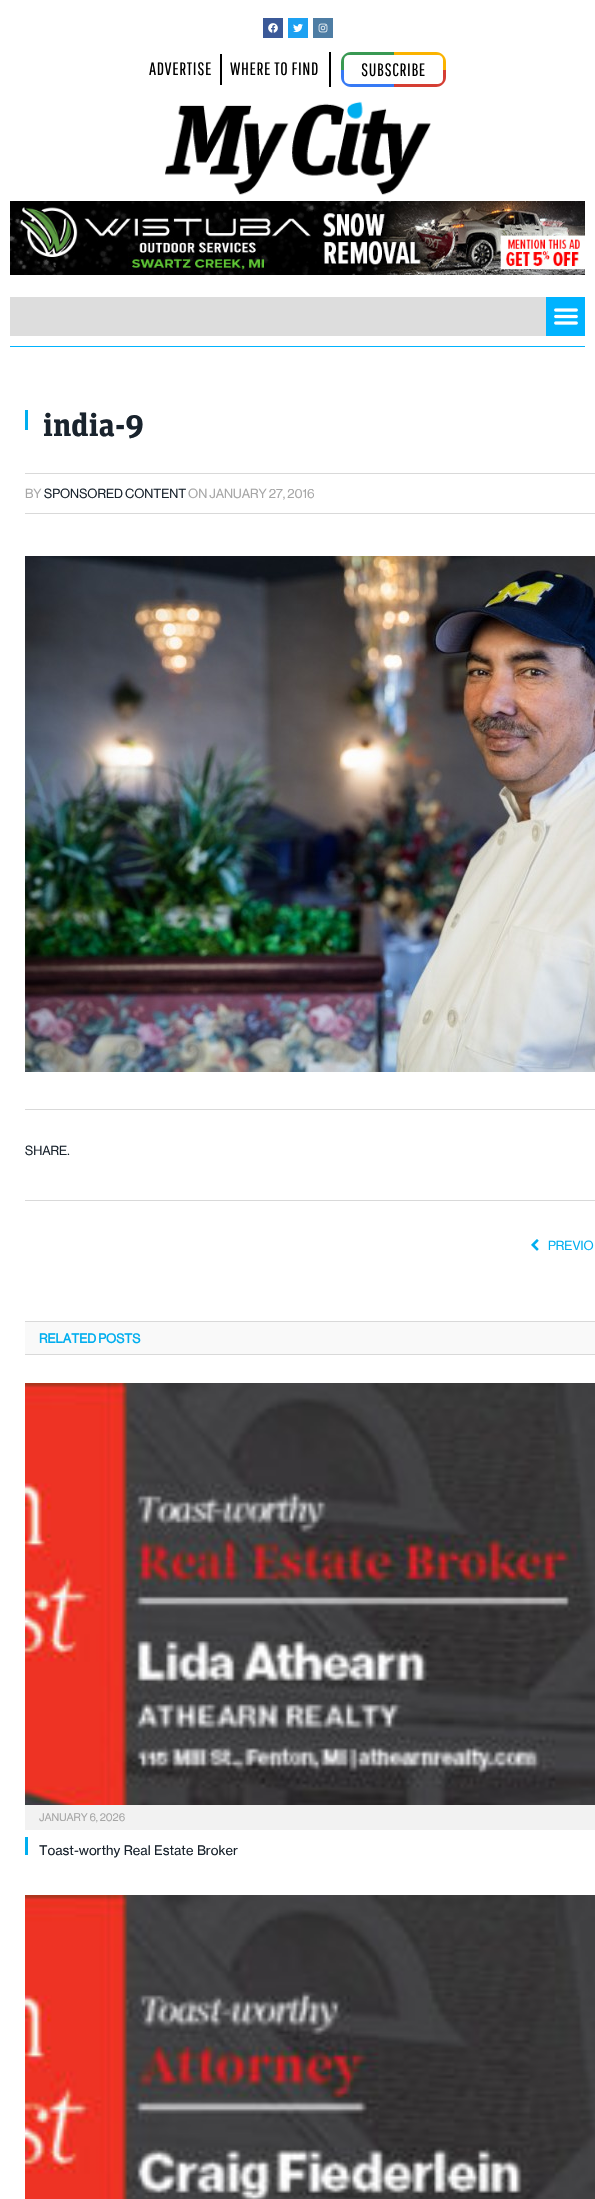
void draw(SkCanvas* canvas) {
    SkPaint paint;
    paint.setAntiAlias(true);
    auto spacedText = [&](const char* s, float x, float y, const SkFont& font, const SkPaint& ink, float letter, float word) {
        std::vector<SkGlyphID> glyphs(font.countText(s, strlen(s), SkTextEncoding::kUTF8));
        std::vector<float> xs(glyphs.size());
        font.textToGlyphs(s, strlen(s), SkTextEncoding::kUTF8, glyphs);
        font.getXPos(glyphs, xs, x);
        float extra = 0;
        for (size_t i = 0; i < glyphs.size(); i++) {
            xs[i] += extra;
            extra += letter + word * (glyphs[i] == font.unicharToGlyph(' '));
        }
        canvas->drawTextBlob(SkTextBlob::MakeFromPosHGlyphs(glyphs, xs, y, font), 0, 0, ink);
    };
    canvas->clear(0xFFFFFFFF);
    paint.setColor(0xFF00B3FF);
    canvas->drawRect(SkRect::MakeXYWH(10, 346, 575, 1), paint);
    paint.setColor(0xFF3B5998);
    canvas->drawRect(SkRect::MakeXYWH(263, 18, 20, 20), paint);
    canvas->drawImageRect(SkImages::DeferredFromEncodedData(SkData::MakeFromFileName("img1.png")), SkRect::MakeXYWH(268, 23, 10, 10), SkSamplingOptions());
    paint.setColor(0xFF1DA1F2);
    canvas->drawRect(SkRect::MakeXYWH(288, 18, 20, 20), paint);
    canvas->drawImageRect(SkImages::DeferredFromEncodedData(SkData::MakeFromFileName("img2.png")), SkRect::MakeXYWH(293, 24, 10, 9), SkSamplingOptions());
    paint.setColor(0xFF4E7DA4);
    canvas->drawRect(SkRect::MakeXYWH(313, 18, 20, 20), paint);
    canvas->drawImageRect(SkImages::DeferredFromEncodedData(SkData::MakeFromFileName("img3.png")), SkRect::MakeXYWH(318, 23, 10, 10), SkSamplingOptions());
    SkFont font1(fontMgr->matchFamilyStyle("Pathway Gothic One", SkFontStyle::Normal()), 18);
    font1.setSubpixel(true);
    paint.setColor(0xFF000000);
    spacedText("ADVERTISE", 149, 75, font1, paint, 0.6f, 0);
    canvas->drawRect(SkRect::MakeXYWH(220, 54, 2, 31), paint);
    spacedText("WHERE TO FIND", 230, 75, font1, paint, 0.6f, 0);
    canvas->drawRect(SkRect::MakeXYWH(329, 52, 2, 35), paint);
    paint.setColor(0xFF377AF5);
    canvas->drawPath(SkPathBuilder().moveTo(341, 70).lineTo(394, 70).lineTo(394, 87).lineTo(351, 87).cubicTo(345.5f, 87, 341, 82.5f, 341, 77).close().detach(), paint);
    paint.setColor(0xFFD53E33);
    canvas->drawPath(SkPathBuilder().moveTo(394, 70).lineTo(446, 70).lineTo(446, 77).cubicTo(446, 82.5f, 441.5f, 87, 436, 87).lineTo(394, 87).close().detach(), paint);
    paint.setColor(0xFFFBB300);
    canvas->drawPath(SkPathBuilder().moveTo(394, 52).lineTo(436, 52).cubicTo(441.5f, 52, 446, 56.5f, 446, 62).lineTo(446, 70).lineTo(394, 70).close().detach(), paint);
    paint.setColor(0xFF399953);
    canvas->drawPath(SkPathBuilder().moveTo(351, 52).lineTo(394, 52).lineTo(394, 70).lineTo(341, 70).lineTo(341, 62).cubicTo(341, 56.5f, 345.5f, 52, 351, 52).close().detach(), paint);
    paint.setColor(0xFFFFFFFF);
    canvas->drawRoundRect(SkRect::MakeXYWH(344, 55, 99, 29), 5, 5, paint);
    paint.setColor(0xFF000000);
    spacedText("SUBSCRIBE", 361, 76, font1, paint, 0.6f, 0);
    canvas->drawImageRect(SkImages::DeferredFromEncodedData(SkData::MakeFromFileName("img4.png")), SkRect::MakeXYWH(165, 101, 266, 94), SkSamplingOptions());
    canvas->drawImageRect(SkImages::DeferredFromEncodedData(SkData::MakeFromFileName("img5.png")), SkRect::MakeXYWH(10, 201, 575, 74), SkSamplingOptions());
    paint.setColor(0xFFDDDDDD);
    canvas->drawRect(SkRect::MakeXYWH(10, 297, 536, 39), paint);
    paint.setColor(0xFF00B3FF);
    canvas->drawRect(SkRect::MakeXYWH(546, 297, 39, 39), paint);
    canvas->drawImageRect(SkImages::DeferredFromEncodedData(SkData::MakeFromFileName("img6.png")), SkRect::MakeXYWH(554, 308, 24, 17), SkSamplingOptions());
    paint.setColor(0xFF00AEEF);
    canvas->drawRect(SkRect::MakeXYWH(25, 410, 3, 20), paint);
    SkFont font2(fontMgr->matchFamilyStyle("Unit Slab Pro", SkFontStyle::Bold()), 32);
    font2.setSubpixel(true);
    paint.setColor(0xFF19232D);
    canvas->drawString("india-9", 43, 436, font2, paint);
    paint.setColor(0xFFD9D9D9);
    canvas->drawRect(SkRect::MakeXYWH(25, 473, 570, 1), paint);
    canvas->drawRect(SkRect::MakeXYWH(25, 513, 570, 1), paint);
    SkFont font3(fontMgr->matchFamilyStyle("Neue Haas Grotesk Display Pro", SkFontStyle(500, SkFontStyle::kNormal_Width, SkFontStyle::kUpright_Slant)), 13);
    font3.setSubpixel(true);
    paint.setColor(0xFFA6A6A6);
    canvas->drawString("BY", 25, 498, font3, paint);
    paint.setColor(0xFF19232D);
    canvas->drawString("SPONSORED CONTENT", 44, 498, font3, paint);
    paint.setColor(0xFFA6A6A6);
    canvas->drawString("ON JANUARY 27, 2016", 188, 498, font3, paint);
    canvas->drawImageRect(SkImages::DeferredFromEncodedData(SkData::MakeFromFileName("img7.png")), SkRect::MakeXYWH(25, 556, 570, 516), SkSamplingOptions());
    paint.setColor(0xFFD9D9D9);
    canvas->drawRect(SkRect::MakeXYWH(25, 1109, 570, 1), paint);
    paint.setColor(0xFF19232D);
    canvas->drawString("SHARE.", 25, 1155, font3, paint);
    paint.setColor(0xFFD9D9D9);
    canvas->drawRect(SkRect::MakeXYWH(25, 1200, 570, 1), paint);
    canvas->drawImageRect(SkImages::DeferredFromEncodedData(SkData::MakeFromFileName("img8.png")), SkRect::MakeXYWH(531, 1239, 8, 12), SkSamplingOptions());
    paint.setColor(0xFF00AEEF);
    canvas->drawString("PREVIO", 548, 1250, font3, paint);
    paint.setColor(0xFFF9F9F9);
    canvas->drawRect(SkRect::MakeXYWH(25, 1322, 570, 32), paint);
    paint.setColor(0xFFD9D9D9);
    canvas->drawRect(SkRect::MakeXYWH(25, 1321, 570, 1), paint);
    canvas->drawRect(SkRect::MakeXYWH(25, 1354, 570, 1), paint);
    SkFont font4(fontMgr->matchFamilyStyle("Neue Haas Grotesk Display Pro", SkFontStyle::Bold()), 13);
    font4.setSubpixel(true);
    paint.setColor(0xFF00AEEF);
    canvas->drawString("RELATED POSTS", 39, 1343, font4, paint);
    canvas->drawImageRect(SkImages::DeferredFromEncodedData(SkData::MakeFromFileName("img9.png")), SkRect::MakeXYWH(25, 1383, 570, 422), SkSamplingOptions());
    paint.setColor(0xFFF2F2F2);
    canvas->drawRect(SkRect::MakeXYWH(25, 1805, 570, 25), paint);
    SkFont font5(fontMgr->matchFamilyStyle("Neue Haas Grotesk Display Pro", SkFontStyle(500, SkFontStyle::kNormal_Width, SkFontStyle::kUpright_Slant)), 11);
    font5.setSubpixel(true);
    paint.setColor(0xFFA6A6A6);
    canvas->drawString("JANUARY 6, 2026", 39, 1821, font5, paint);
    paint.setColor(0xFF00AEEF);
    canvas->drawRect(SkRect::MakeXYWH(25, 1837, 3, 18), paint);
    SkFont font6(fontMgr->matchFamilyStyle("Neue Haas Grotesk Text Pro", SkFontStyle::Normal()), 13);
    font6.setSubpixel(true);
    paint.setColor(0xFF19232D);
    canvas->drawString("Toast-worthy Real Estate Broker", 39, 1855, font6, paint);
    canvas->drawImageRect(SkImages::DeferredFromEncodedData(SkData::MakeFromFileName("img10.png")), SkRect::MakeXYWH(25, 1895, 570, 304), SkSamplingOptions());
}
